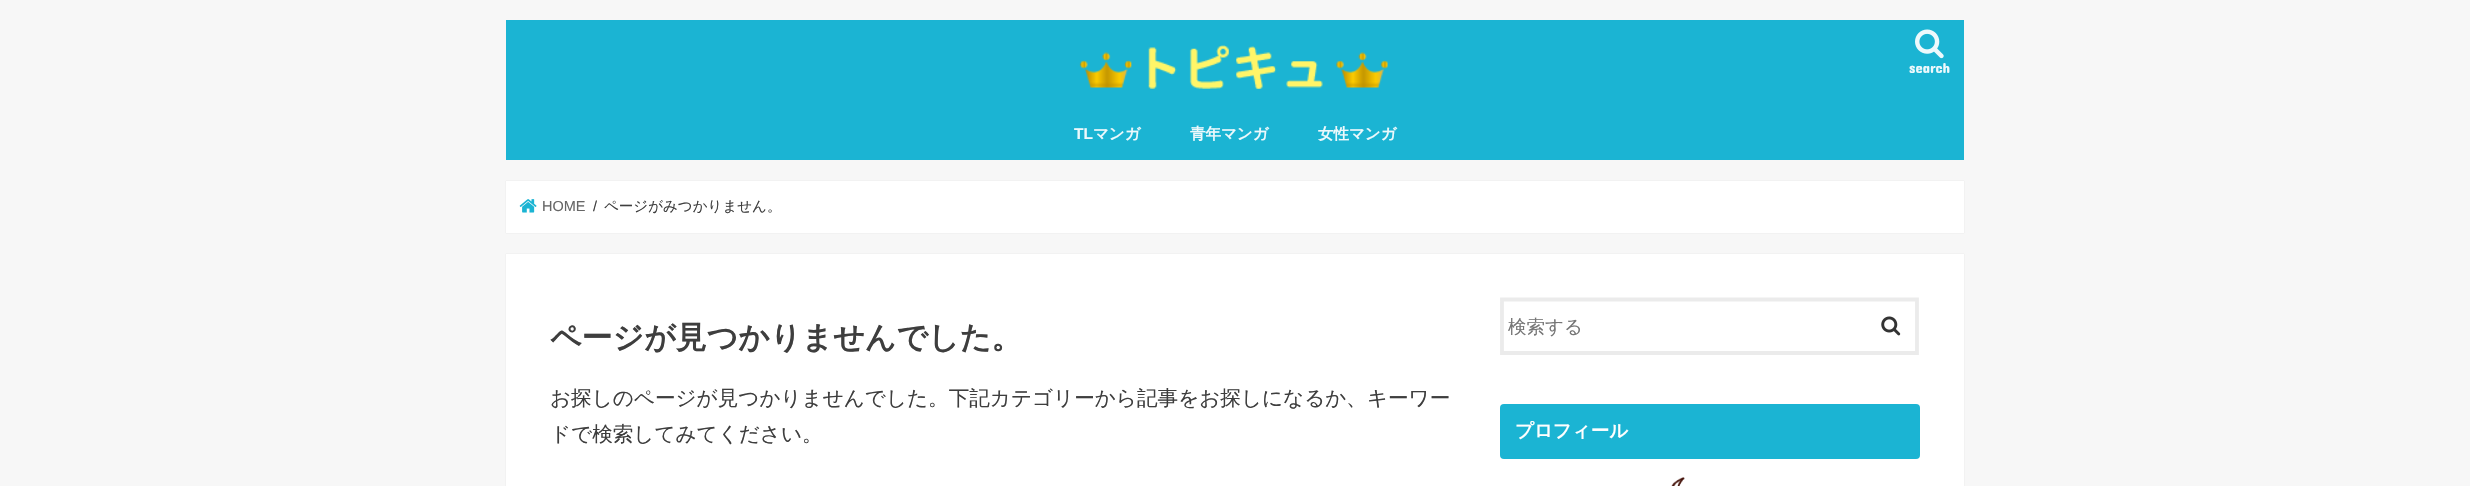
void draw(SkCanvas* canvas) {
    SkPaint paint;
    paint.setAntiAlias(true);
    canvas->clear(0xFFF7F7F7);
    paint.setColor(0xFF1BB4D3);
    canvas->drawRect(SkRect::MakeXYWH(506, 20, 1458, 140), paint);
    canvas->drawImageRect(SkImages::DeferredFromEncodedData(SkData::MakeFromFileName("img1.png")), SkRect::MakeXYWH(1079, 45, 309, 44), SkSamplingOptions());
    canvas->drawImageRect(SkImages::DeferredFromEncodedData(SkData::MakeFromFileName("img2.png")), SkRect::MakeXYWH(1915, 29, 29, 30), SkSamplingOptions());
    SkFont font1(fontMgr->matchFamilyStyle("Concert One", SkFontStyle::Normal()), 14.5f);
    font1.setSubpixel(true);
    paint.setColor(0xFFEDF9FC);
    canvas->drawString("search", 1909, 73, font1, paint);
    SkFont font2(fontMgr->matchFamilyStyle("Liberation Sans", SkFontStyle::Bold()), 15.5f);
    font2.setSubpixel(true);
    canvas->drawString("TL", 1074, 139, font2, paint);
    SkFont font3(fontMgr->matchFamilyStyle("WenQuanYi Zen Hei", SkFontStyle::Bold()), 15.5f);
    font3.setSubpixel(true);
    canvas->drawString("マンガ", 1093, 139, font3, paint);
    canvas->drawString("青年マンガ", 1190, 139, font3, paint);
    canvas->drawString("女性マンガ", 1318, 139, font3, paint);
    paint.setColor(0xFFDDDDDD);
    paint.setMaskFilter(SkMaskFilter::MakeBlur(kNormal_SkBlurStyle, 0.5f));
    canvas->drawRect(SkRect::MakeXYWH(506, 181, 1458, 52), paint);
    paint.setMaskFilter(nullptr);
    paint.setColor(0xFFFFFFFF);
    canvas->drawRect(SkRect::MakeXYWH(506, 181, 1458, 52), paint);
    canvas->drawImageRect(SkImages::DeferredFromEncodedData(SkData::MakeFromFileName("img3.png")), SkRect::MakeXYWH(519, 199, 18, 14), SkSamplingOptions());
    SkFont font4(fontMgr->matchFamilyStyle("Liberation Sans", SkFontStyle::Normal()), 14.5f);
    font4.setSubpixel(true);
    paint.setColor(0xFF666666);
    canvas->drawString("HOME", 542, 211, font4, paint);
    paint.setColor(0xFF3E3E3E);
    canvas->drawString("/", 593, 211, font4, paint);
    SkFont font5(fontMgr->matchFamilyStyle("WenQuanYi Zen Hei", SkFontStyle(500, SkFontStyle::kNormal_Width, SkFontStyle::kUpright_Slant)), 14.5f);
    font5.setSubpixel(true);
    canvas->drawString("ページがみつかりません。", 604, 211, font5, paint);
    paint.setColor(0xFFDDDDDD);
    paint.setMaskFilter(SkMaskFilter::MakeBlur(kNormal_SkBlurStyle, 0.5f));
    canvas->drawRect(SkRect::MakeXYWH(506, 254, 1458, 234), paint);
    paint.setMaskFilter(nullptr);
    paint.setColor(0xFFFFFFFF);
    canvas->drawRect(SkRect::MakeXYWH(506, 254, 1458, 232), paint);
    SkFont font6(fontMgr->matchFamilyStyle("WenQuanYi Zen Hei", SkFontStyle::Bold()), 30.9f);
    font6.setSubpixel(true);
    paint.setColor(0xFF3E3E3E);
    canvas->drawString("ページが見つかりませんでした。", 550, 348, font6, paint);
    SkFont font7(fontMgr->matchFamilyStyle("WenQuanYi Zen Hei", SkFontStyle(500, SkFontStyle::kNormal_Width, SkFontStyle::kUpright_Slant)), 20.6f);
    font7.setSubpixel(true);
    canvas->drawString("お探しのページが見つかりませんでした。下記カテゴリーから記事をお探しになるか、キーワー", 550, 405, font7, paint);
    canvas->drawString("ドで検索してみてください。", 550, 441, font7, paint);
    paint.setStyle(SkPaint::kStroke_Style);
    paint.setStrokeWidth(3.8f);
    paint.setColor(0xFFEBEBEB);
    canvas->drawPath(SkPathBuilder().moveTo(1502, 299.5f).lineTo(1917, 299.5f).lineTo(1917, 353).lineTo(1502, 353).close().detach(), paint);
    SkFont font8(fontMgr->matchFamilyStyle("WenQuanYi Zen Hei", SkFontStyle(500, SkFontStyle::kNormal_Width, SkFontStyle::kUpright_Slant)), 18.5f);
    font8.setSubpixel(true);
    paint.setStyle(SkPaint::kFill_Style);
    paint.setColor(0xFF757575);
    canvas->drawString("検索する", 1508, 333, font8, paint);
    canvas->drawImageRect(SkImages::DeferredFromEncodedData(SkData::MakeFromFileName("img4.png")), SkRect::MakeXYWH(1881, 316, 20, 20), SkSamplingOptions());
    paint.setColor(0xFF1BB4D3);
    canvas->drawRoundRect(SkRect::MakeXYWH(1500, 404, 420, 55), 4, 4, paint);
    SkFont font9(fontMgr->matchFamilyStyle("WenQuanYi Zen Hei", SkFontStyle::Bold()), 18.5f);
    font9.setSubpixel(true);
    paint.setColor(0xFFFFFFFF);
    canvas->drawString("プロフィール", 1515, 437, font9, paint);
    canvas->drawImageRect(SkImages::DeferredFromEncodedData(SkData::MakeFromFileName("img5.png")), SkRect::MakeXYWH(1671, 477, 14, 9), SkSamplingOptions());
}
